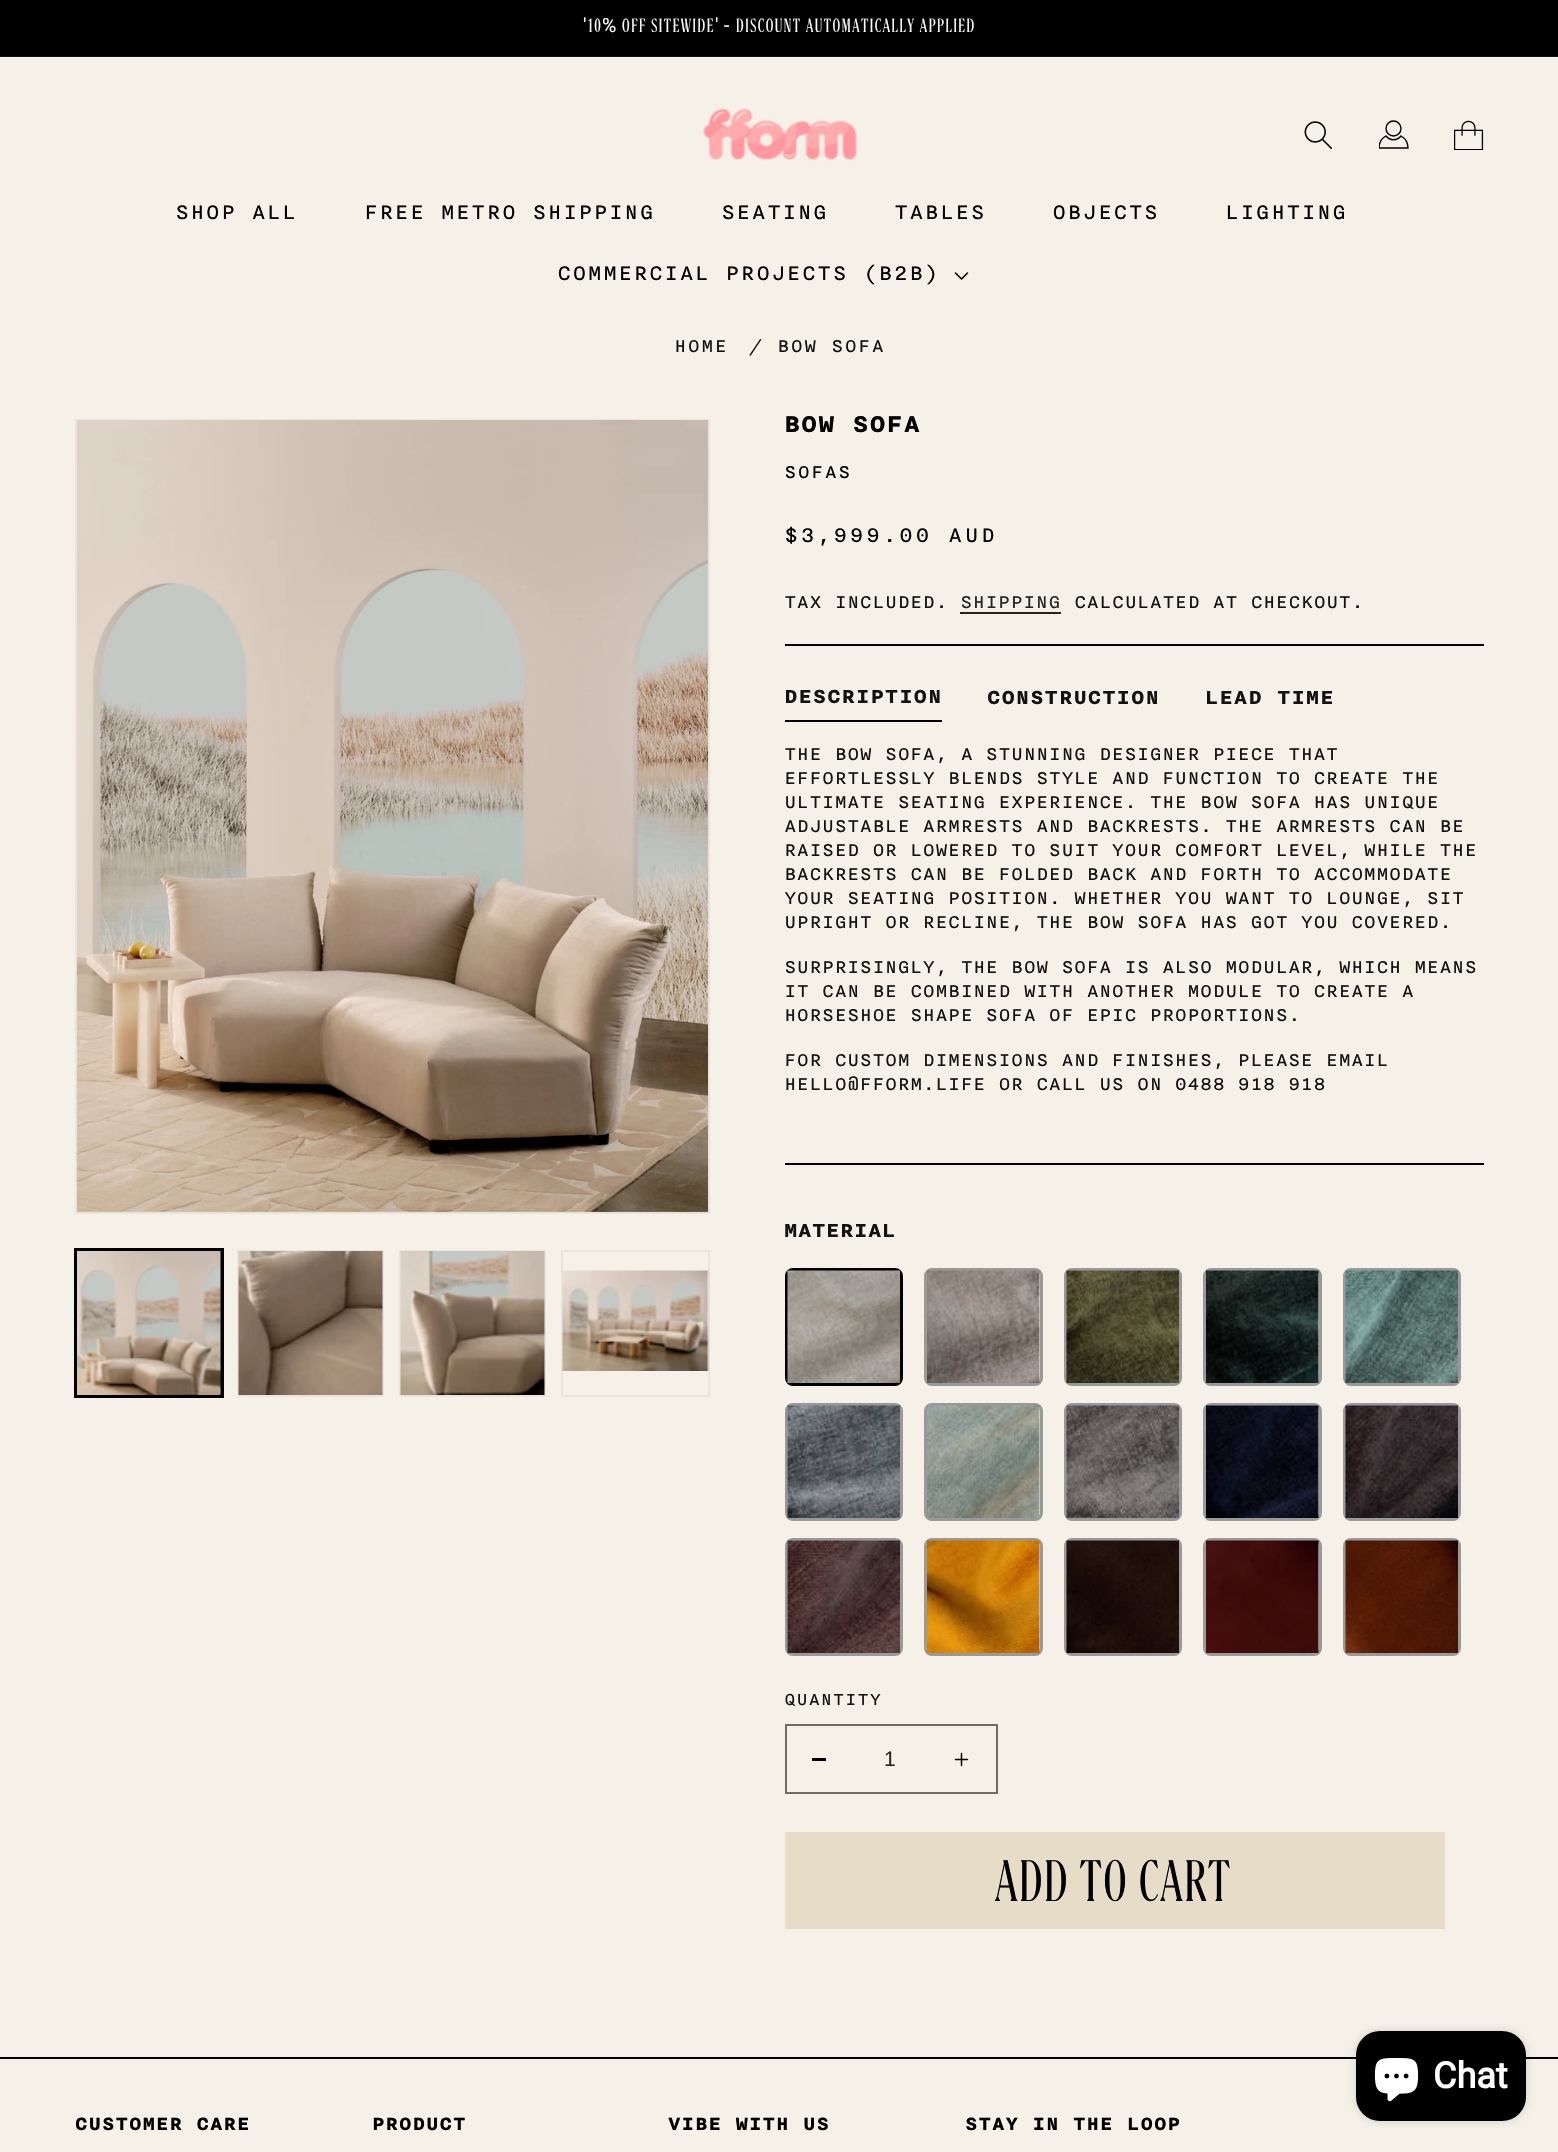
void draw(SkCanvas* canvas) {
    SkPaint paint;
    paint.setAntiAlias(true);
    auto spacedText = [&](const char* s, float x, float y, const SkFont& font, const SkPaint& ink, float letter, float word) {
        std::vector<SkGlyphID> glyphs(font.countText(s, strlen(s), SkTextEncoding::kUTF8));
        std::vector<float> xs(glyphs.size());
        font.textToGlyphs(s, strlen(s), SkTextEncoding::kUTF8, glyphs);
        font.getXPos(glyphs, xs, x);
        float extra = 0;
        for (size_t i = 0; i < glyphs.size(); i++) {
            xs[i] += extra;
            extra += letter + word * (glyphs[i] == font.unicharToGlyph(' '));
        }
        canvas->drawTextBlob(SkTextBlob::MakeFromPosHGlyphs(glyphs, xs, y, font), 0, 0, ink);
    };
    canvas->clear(0xFFF5F1E8);
    paint.setColor(0xFF000000);
    canvas->drawRect(SkRect::MakeXYWH(0, 0, 1558, 56), paint);
    paint.setColor(0xFF141414);
    canvas->drawRect(SkRect::MakeXYWH(0, 56, 1558, 1), paint);
    SkFont font1(fontMgr->matchFamilyStyle("Roboto", SkFontStyle::Normal()), 19.5f);
    font1.setSubpixel(true);
    paint.setColor(0xFFFFFFFF);
    spacedText("'", 583, 32, font1, paint, 1.5f, 0);
    SkFont font2(fontMgr->matchFamilyStyle("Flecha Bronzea", SkFontStyle::Normal()), 19.5f);
    font2.setSubpixel(true);
    spacedText("10", 588, 32, font2, paint, 1.5f, 0);
    spacedText("%", 602, 32, font1, paint, 1.5f, 0);
    spacedText("OFF SITEWIDE", 622, 32, font2, paint, 1.5f, 0);
    spacedText("'", 715, 32, font1, paint, 1.5f, 0);
    spacedText("-", 724, 32, font1, paint, 1.5f, 0);
    spacedText("DISCOUNT AUTOMATICALLY APPLIED", 736, 32, font2, paint, 1.5f, 0);
    canvas->drawImageRect(SkImages::DeferredFromEncodedData(SkData::MakeFromFileName("img1.png")), SkRect::MakeXYWH(703, 108, 154, 53), SkSamplingOptions());
    canvas->drawImageRect(SkImages::DeferredFromEncodedData(SkData::MakeFromFileName("img2.png")), SkRect::MakeXYWH(1304, 121, 28, 28), SkSamplingOptions());
    canvas->save();
    canvas->clipRect(SkRect::MakeXYWH(1379, 120, 30, 30));
    paint.setStyle(SkPaint::kStroke_Style);
    paint.setStrokeWidth(1.4f);
    paint.setColor(0xFF000000);
    canvas->drawPath(SkPathBuilder().moveTo(1386, 136).cubicTo(1381.5f, 138.5f, 1379, 143, 1379, 148).lineTo(1408, 148).cubicTo(1408, 143, 1405.5f, 138.5f, 1401, 136).cubicTo(1397, 141, 1390, 141, 1386, 136).close().detach(), paint);
    canvas->restore();
    canvas->drawCircle(1393.5f, 128.5f, 7.5f, paint);
    canvas->drawImageRect(SkImages::DeferredFromEncodedData(SkData::MakeFromFileName("img3.png")), SkRect::MakeXYWH(1454, 120, 30, 30), SkSamplingOptions());
    SkFont font3(fontMgr->matchFamilyStyle("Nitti", SkFontStyle::Normal()), 24);
    font3.setSubpixel(true);
    paint.setStyle(SkPaint::kFill_Style);
    spacedText("SHOP ALL", 175, 219, font3, paint, 0.9f, 0);
    spacedText("FREE METRO SHIPPING", 364, 219, font3, paint, 0.9f, 0);
    spacedText("SEATING", 721, 219, font3, paint, 0.9f, 0);
    spacedText("TABLES", 894, 219, font3, paint, 0.9f, 0);
    spacedText("OBJECTS", 1052, 219, font3, paint, 0.9f, 0);
    spacedText("LIGHTING", 1225, 219, font3, paint, 0.9f, 0);
    spacedText("COMMERCIAL PROJECTS (B2B)", 557, 280, font3, paint, 0.9f, 0);
    canvas->drawImageRect(SkImages::DeferredFromEncodedData(SkData::MakeFromFileName("img4.png")), SkRect::MakeXYWH(954, 272, 15, 8), SkSamplingOptions());
    SkFont font4(fontMgr->matchFamilyStyle("Nitti", SkFontStyle::Normal()), 21);
    font4.setSubpixel(true);
    paint.setColor(0xFF121212);
    spacedText("HOME", 674, 352, font4, paint, 0.9f, 0);
    SkFont font5(fontMgr->matchFamilyStyle("Nitti", SkFontStyle::Normal()), 20);
    font5.setSubpixel(true);
    spacedText("/", 750, 352, font5, paint, 0.9f, 0);
    spacedText("BOW SOFA", 777, 352, font4, paint, 0.9f, 0);
    paint.setStyle(SkPaint::kStroke_Style);
    paint.setStrokeWidth(2);
    paint.setColor(0xFFE9E5DC);
    canvas->drawRect(SkRect::MakeXYWH(76, 420, 633, 793), paint);
    canvas->drawImageRect(SkImages::DeferredFromEncodedData(SkData::MakeFromFileName("img5.png")), SkRect::MakeXYWH(77, 420, 631, 793), SkSamplingOptions());
    paint.setColor(0xFF000000);
    canvas->drawRect(SkRect::MakeXYWH(75, 1249, 148, 148), paint);
    canvas->drawRect(SkRect::MakeXYWH(76, 1251, 145, 145), paint);
    canvas->drawImageRect(SkImages::DeferredFromEncodedData(SkData::MakeFromFileName("img6.png")), SkRect::MakeXYWH(77, 1251, 144, 144), SkSamplingOptions());
    paint.setColor(0xFFE9E5DC);
    canvas->drawRect(SkRect::MakeXYWH(238, 1251, 145, 145), paint);
    canvas->drawImageRect(SkImages::DeferredFromEncodedData(SkData::MakeFromFileName("img7.png")), SkRect::MakeXYWH(238, 1251, 145, 144), SkSamplingOptions());
    canvas->drawRect(SkRect::MakeXYWH(400, 1251, 145, 145), paint);
    canvas->drawImageRect(SkImages::DeferredFromEncodedData(SkData::MakeFromFileName("img8.png")), SkRect::MakeXYWH(400, 1251, 145, 144), SkSamplingOptions());
    canvas->drawRect(SkRect::MakeXYWH(562, 1251, 147, 145), paint);
    canvas->drawImageRect(SkImages::DeferredFromEncodedData(SkData::MakeFromFileName("img9.png")), SkRect::MakeXYWH(562, 1270, 147, 101), SkSamplingOptions());
    SkFont font6(fontMgr->matchFamilyStyle("Nitti", SkFontStyle::Bold()), 27);
    font6.setSubpixel(true);
    paint.setStyle(SkPaint::kFill_Style);
    paint.setColor(0xFF000000);
    spacedText("BOW SOFA", 784, 432, font6, paint, 0.9f, 0);
    spacedText("SOFAS", 784, 478, font4, paint, 0.9f, 0);
    spacedText("$3,999.00 AUD", 784, 542, font3, paint, 2, 0);
    paint.setColor(0xFF121212);
    canvas->drawString("TAX INCLUDED.", 784, 608, font4, paint);
    paint.setColor(0xFF252423);
    canvas->drawString("SHIPPING", 960, 608, font4, paint);
    canvas->drawRect(SkRect::MakeXYWH(960, 612, 101, 2), paint);
    paint.setColor(0xFF121212);
    canvas->drawString("CALCULATED AT CHECKOUT.", 1074, 608, font4, paint);
    paint.setColor(0xFF000000);
    canvas->drawRect(SkRect::MakeXYWH(785, 644, 699, 2), paint);
    canvas->drawRect(SkRect::MakeXYWH(785, 1163, 699, 2), paint);
    canvas->drawRect(SkRect::MakeXYWH(785, 720, 157, 2), paint);
    SkFont font7(fontMgr->matchFamilyStyle("Nitti", SkFontStyle::Bold()), 22.5f);
    font7.setSubpixel(true);
    paint.setColor(0xFF121212);
    spacedText("DESCRIPTION", 784, 703, font7, paint, 0.9f, 0);
    spacedText("CONSTRUCTION", 987, 704, font7, paint, 0.9f, 0);
    spacedText("LEAD TIME", 1205, 704, font7, paint, 0.9f, 0);
    canvas->drawString("THE BOW SOFA, A STUNNING DESIGNER PIECE THAT", 784, 760, font4, paint);
    canvas->drawString("EFFORTLESSLY BLENDS STYLE AND FUNCTION TO CREATE THE", 784, 784, font4, paint);
    canvas->drawString("ULTIMATE SEATING EXPERIENCE. THE BOW SOFA HAS UNIQUE", 784, 808, font4, paint);
    canvas->drawString("ADJUSTABLE ARMRESTS AND BACKRESTS. THE ARMRESTS CAN BE", 784, 832, font4, paint);
    canvas->drawString("RAISED OR LOWERED TO SUIT YOUR COMFORT LEVEL, WHILE THE", 784, 856, font4, paint);
    canvas->drawString("BACKRESTS CAN BE FOLDED BACK AND FORTH TO ACCOMMODATE", 784, 880, font4, paint);
    canvas->drawString("YOUR SEATING POSITION. WHETHER YOU WANT TO LOUNGE, SIT", 784, 904, font4, paint);
    canvas->drawString("UPRIGHT OR RECLINE, THE BOW SOFA HAS GOT YOU COVERED.", 784, 928, font4, paint);
    canvas->drawString("SURPRISINGLY, THE BOW SOFA IS ALSO MODULAR, WHICH MEANS", 784, 973, font4, paint);
    canvas->drawString("IT CAN BE COMBINED WITH ANOTHER MODULE TO CREATE A", 784, 997, font4, paint);
    canvas->drawString("HORSESHOE SHAPE SOFA OF EPIC PROPORTIONS.", 784, 1021, font4, paint);
    canvas->drawString("FOR CUSTOM DIMENSIONS AND FINISHES, PLEASE EMAIL", 784, 1066, font4, paint);
    canvas->drawString("HELLO@FFORM.LIFE OR CALL US ON 0488 918 918", 784, 1090, font4, paint);
    spacedText("MATERIAL", 784, 1237, font7, paint, 0.5f, 0);
    paint.setStyle(SkPaint::kStroke_Style);
    paint.setStrokeWidth(3);
    paint.setColor(0xFF000000);
    canvas->drawRoundRect(SkRect::MakeXYWH(786.5f, 1269.5f, 115, 115), 6.5f, 6.5f, paint);
    canvas->drawImageRect(SkImages::DeferredFromEncodedData(SkData::MakeFromFileName("img10.png")), SkRect::MakeXYWH(787, 1270, 113, 113), SkSamplingOptions());
    paint.setColor(0xFF999999);
    canvas->drawRoundRect(SkRect::MakeXYWH(925.5f, 1269.5f, 116, 115), 6.5f, 6.5f, paint);
    canvas->drawImageRect(SkImages::DeferredFromEncodedData(SkData::MakeFromFileName("img11.png")), SkRect::MakeXYWH(927, 1270, 113, 113), SkSamplingOptions());
    canvas->drawRoundRect(SkRect::MakeXYWH(1065.5f, 1269.5f, 115, 115), 6.5f, 6.5f, paint);
    canvas->drawImageRect(SkImages::DeferredFromEncodedData(SkData::MakeFromFileName("img12.png")), SkRect::MakeXYWH(1066, 1270, 113, 113), SkSamplingOptions());
    canvas->drawRoundRect(SkRect::MakeXYWH(1204.5f, 1269.5f, 116, 115), 6.5f, 6.5f, paint);
    canvas->drawImageRect(SkImages::DeferredFromEncodedData(SkData::MakeFromFileName("img13.png")), SkRect::MakeXYWH(1206, 1270, 113, 113), SkSamplingOptions());
    canvas->drawRoundRect(SkRect::MakeXYWH(1344.5f, 1269.5f, 115, 115), 6.5f, 6.5f, paint);
    canvas->drawImageRect(SkImages::DeferredFromEncodedData(SkData::MakeFromFileName("img14.png")), SkRect::MakeXYWH(1345, 1270, 113, 113), SkSamplingOptions());
    canvas->drawRoundRect(SkRect::MakeXYWH(786.5f, 1404.5f, 115, 115), 6.5f, 6.5f, paint);
    canvas->drawImageRect(SkImages::DeferredFromEncodedData(SkData::MakeFromFileName("img15.png")), SkRect::MakeXYWH(787, 1405, 113, 113), SkSamplingOptions());
    canvas->drawRoundRect(SkRect::MakeXYWH(925.5f, 1404.5f, 116, 115), 6.5f, 6.5f, paint);
    canvas->drawImageRect(SkImages::DeferredFromEncodedData(SkData::MakeFromFileName("img16.png")), SkRect::MakeXYWH(927, 1405, 113, 113), SkSamplingOptions());
    canvas->drawRoundRect(SkRect::MakeXYWH(1065.5f, 1404.5f, 115, 115), 6.5f, 6.5f, paint);
    canvas->drawImageRect(SkImages::DeferredFromEncodedData(SkData::MakeFromFileName("img17.png")), SkRect::MakeXYWH(1066, 1405, 113, 113), SkSamplingOptions());
    canvas->drawRoundRect(SkRect::MakeXYWH(1204.5f, 1404.5f, 116, 115), 6.5f, 6.5f, paint);
    canvas->drawImageRect(SkImages::DeferredFromEncodedData(SkData::MakeFromFileName("img18.png")), SkRect::MakeXYWH(1206, 1405, 113, 113), SkSamplingOptions());
    canvas->drawRoundRect(SkRect::MakeXYWH(1344.5f, 1404.5f, 115, 115), 6.5f, 6.5f, paint);
    canvas->drawImageRect(SkImages::DeferredFromEncodedData(SkData::MakeFromFileName("img19.png")), SkRect::MakeXYWH(1345, 1405, 113, 113), SkSamplingOptions());
    canvas->drawRoundRect(SkRect::MakeXYWH(786.5f, 1539.5f, 115, 115), 6.5f, 6.5f, paint);
    canvas->drawImageRect(SkImages::DeferredFromEncodedData(SkData::MakeFromFileName("img20.png")), SkRect::MakeXYWH(787, 1540, 113, 113), SkSamplingOptions());
    canvas->drawRoundRect(SkRect::MakeXYWH(925.5f, 1539.5f, 116, 115), 6.5f, 6.5f, paint);
    canvas->drawImageRect(SkImages::DeferredFromEncodedData(SkData::MakeFromFileName("img21.png")), SkRect::MakeXYWH(927, 1540, 113, 113), SkSamplingOptions());
    canvas->drawRoundRect(SkRect::MakeXYWH(1065.5f, 1539.5f, 115, 115), 6.5f, 6.5f, paint);
    canvas->drawImageRect(SkImages::DeferredFromEncodedData(SkData::MakeFromFileName("img22.png")), SkRect::MakeXYWH(1066, 1540, 113, 113), SkSamplingOptions());
    canvas->drawRoundRect(SkRect::MakeXYWH(1204.5f, 1539.5f, 116, 115), 6.5f, 6.5f, paint);
    canvas->drawImageRect(SkImages::DeferredFromEncodedData(SkData::MakeFromFileName("img23.png")), SkRect::MakeXYWH(1206, 1540, 113, 113), SkSamplingOptions());
    canvas->drawRoundRect(SkRect::MakeXYWH(1344.5f, 1539.5f, 115, 115), 6.5f, 6.5f, paint);
    canvas->drawImageRect(SkImages::DeferredFromEncodedData(SkData::MakeFromFileName("img24.png")), SkRect::MakeXYWH(1345, 1540, 113, 113), SkSamplingOptions());
    SkFont font8(fontMgr->matchFamilyStyle("Nitti", SkFontStyle::Normal()), 19.5f);
    font8.setSubpixel(true);
    paint.setStyle(SkPaint::kFill_Style);
    paint.setColor(0xFF121212);
    spacedText("QUANTITY", 784, 1705, font8, paint, 0.5f, 0);
    paint.setColor(0xFF000000);
    canvas->drawRect(SkRect::MakeXYWH(812, 1758, 14, 3), paint);
    canvas->drawImageRect(SkImages::DeferredFromEncodedData(SkData::MakeFromFileName("img25.png")), SkRect::MakeXYWH(954, 1752, 15, 15), SkSamplingOptions());
    paint.setStyle(SkPaint::kStroke_Style);
    paint.setStrokeWidth(2);
    paint.setColor(0xFF6E6C68);
    canvas->drawRect(SkRect::MakeXYWH(786, 1725, 211, 68), paint);
    SkFont font9(fontMgr->matchFamilyStyle("Liberation Sans", SkFontStyle::Normal()), 21);
    font9.setSubpixel(true);
    paint.setStyle(SkPaint::kFill_Style);
    paint.setColor(0xFF252423);
    canvas->drawString("1", 884, 1766, font9, paint);
    paint.setColor(0xFFE7DCC8);
    canvas->drawRect(SkRect::MakeXYWH(785, 1832, 660, 97), paint);
    SkFont font10(fontMgr->matchFamilyStyle("Flecha Bronzea", SkFontStyle::Normal()), 60);
    font10.setSubpixel(true);
    paint.setColor(0xFF000000);
    spacedText("ADD TO CART", 995, 1901, font10, paint, 1.5f, 0);
    canvas->drawRect(SkRect::MakeXYWH(0, 2057, 1558, 2), paint);
    paint.setColor(0x26000000);
    paint.setMaskFilter(SkMaskFilter::MakeBlur(kNormal_SkBlurStyle, 4));
    canvas->drawRoundRect(SkRect::MakeXYWH(1356, 2031, 170, 90), 24, 24, paint);
    paint.setMaskFilter(nullptr);
    paint.setColor(0xFF000000);
    canvas->drawRoundRect(SkRect::MakeXYWH(1356, 2031, 170, 90), 24, 24, paint);
    canvas->drawImageRect(SkImages::DeferredFromEncodedData(SkData::MakeFromFileName("img26.png")), SkRect::MakeXYWH(1374, 2058, 45, 44), SkSamplingOptions());
    SkFont font11(fontMgr->matchFamilyStyle("Roboto", SkFontStyle::Bold()), 36);
    font11.setSubpixel(true);
    paint.setColor(0xFFFFFFFF);
    canvas->drawString("Chat", 1433, 2088, font11, paint);
    SkFont font12(fontMgr->matchFamilyStyle("Nitti", SkFontStyle::Bold()), 21);
    font12.setSubpixel(true);
    paint.setColor(0xFF000000);
    spacedText("CUSTOMER CARE", 75, 2130, font12, paint, 0.9f, 0);
    spacedText("PRODUCT", 372, 2130, font12, paint, 0.9f, 0);
    spacedText("VIBE WITH US", 668, 2130, font12, paint, 0.9f, 0);
    spacedText("STAY IN THE LOOP", 965, 2130, font12, paint, 0.9f, 0);
}
